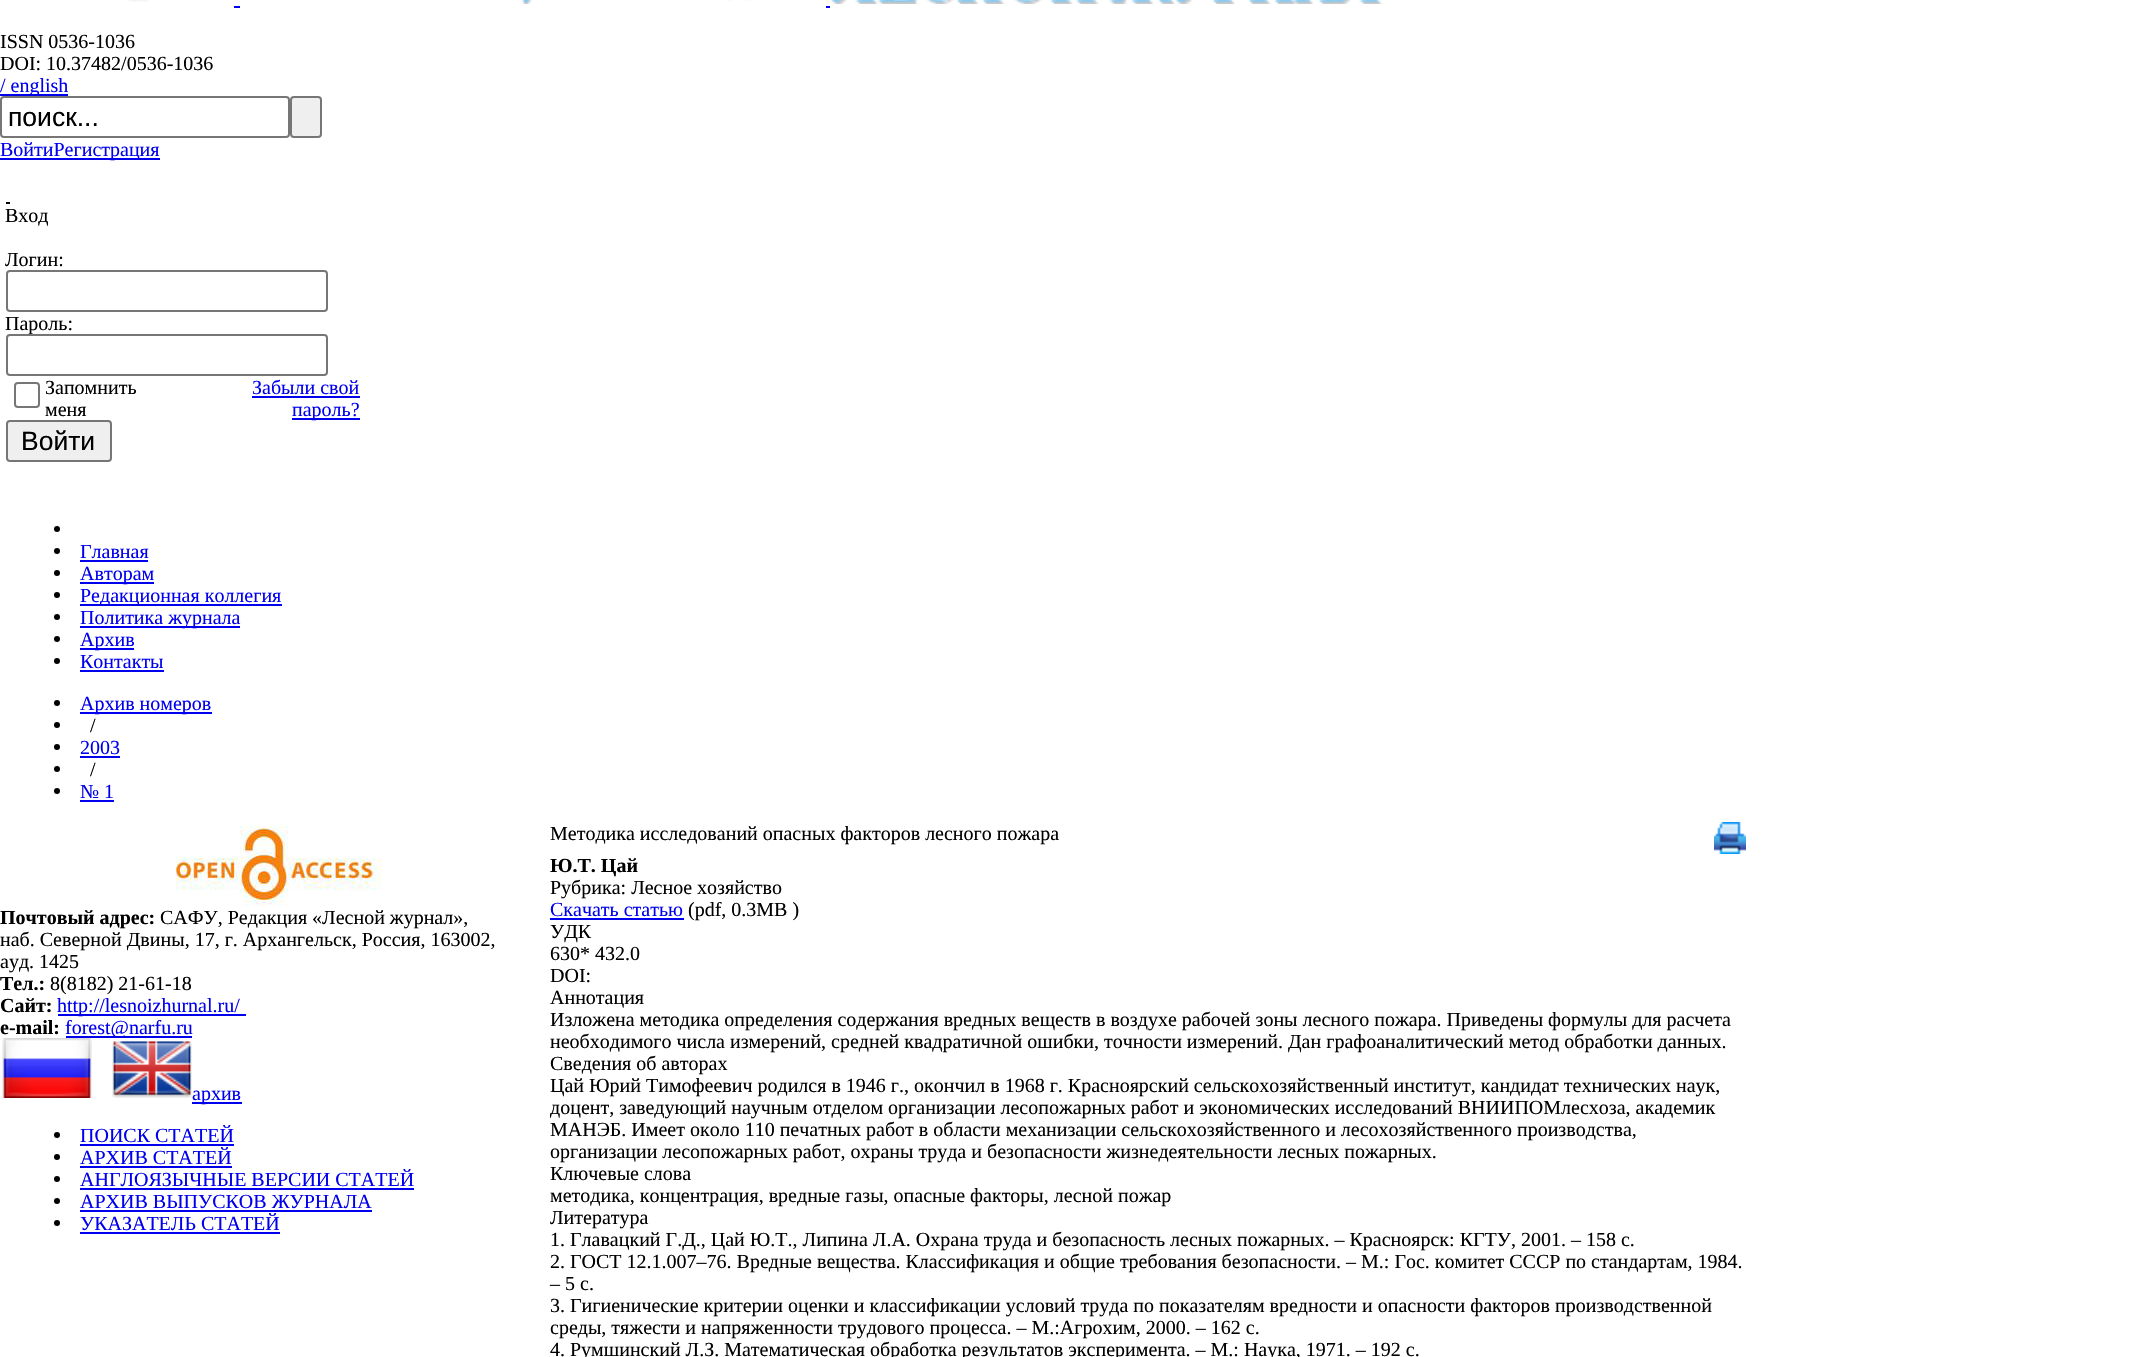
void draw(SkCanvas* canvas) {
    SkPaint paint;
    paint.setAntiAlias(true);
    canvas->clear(0xFFFFFFFF);
    canvas->drawImageRect(SkImages::DeferredFromEncodedData(SkData::MakeFromFileName("img1.png")), SkRect::MakeXYWH(128, 0, 21, 2), SkSamplingOptions());
    canvas->drawImageRect(SkImages::DeferredFromEncodedData(SkData::MakeFromFileName("img2.png")), SkRect::MakeXYWH(521, 0, 227, 4), SkSamplingOptions());
    canvas->drawImageRect(SkImages::DeferredFromEncodedData(SkData::MakeFromFileName("img3.png")), SkRect::MakeXYWH(831, 0, 551, 4), SkSamplingOptions());
    paint.setColor(0xFF0000EE);
    canvas->drawRect(SkRect::MakeXYWH(234, 6, 6, 2), paint);
    canvas->drawRect(SkRect::MakeXYWH(826, 6, 4, 2), paint);
    SkFont font1(fontMgr->matchFamilyStyle("Liberation Serif", SkFontStyle::Normal()), 20);
    font1.setSubpixel(true);
    paint.setColor(0xFF000000);
    canvas->drawString("ISSN 0536-1036", 0, 48, font1, paint);
    canvas->drawString("DOI: 10.37482/0536-1036", 0, 70, font1, paint);
    paint.setColor(0xFF0000EE);
    canvas->drawRect(SkRect::MakeXYWH(0, 94, 68, 2), paint);
    canvas->drawString("/ english", 0, 92, font1, paint);
    paint.setColor(0xFFFFFFFF);
    canvas->drawRoundRect(SkRect::MakeXYWH(1, 97, 288, 40), 3, 3, paint);
    paint.setStyle(SkPaint::kStroke_Style);
    paint.setStrokeWidth(2);
    paint.setColor(0xFF767676);
    canvas->drawRoundRect(SkRect::MakeXYWH(1, 97, 288, 40), 3, 3, paint);
    SkFont font2(fontMgr->matchFamilyStyle("Liberation Sans", SkFontStyle::Normal()), 26.5f);
    font2.setSubpixel(true);
    paint.setStyle(SkPaint::kFill_Style);
    paint.setColor(0xFF000000);
    canvas->drawString("поиск...", 8, 126, font2, paint);
    paint.setColor(0xFFEFEFEF);
    canvas->drawRoundRect(SkRect::MakeXYWH(291, 97, 30, 40), 3, 3, paint);
    paint.setStyle(SkPaint::kStroke_Style);
    paint.setColor(0xFF767676);
    canvas->drawRoundRect(SkRect::MakeXYWH(291, 97, 30, 40), 3, 3, paint);
    paint.setStyle(SkPaint::kFill_Style);
    paint.setColor(0xFF0000EE);
    canvas->drawRect(SkRect::MakeXYWH(0, 158, 160, 2), paint);
    canvas->drawString("ВойтиРегистрация", 0, 156, font1, paint);
    paint.setColor(0xFF000000);
    canvas->drawRect(SkRect::MakeXYWH(6, 202, 4, 2), paint);
    canvas->drawString("Вход", 5, 222, font1, paint);
    canvas->drawString("Логин:", 5, 266, font1, paint);
    paint.setStyle(SkPaint::kStroke_Style);
    paint.setColor(0xFF767676);
    canvas->drawRoundRect(SkRect::MakeXYWH(7, 271, 320, 40), 3, 3, paint);
    paint.setStyle(SkPaint::kFill_Style);
    paint.setColor(0xFF000000);
    canvas->drawString("Пароль:", 5, 330, font1, paint);
    paint.setColor(0xFFFFFFFF);
    canvas->drawRoundRect(SkRect::MakeXYWH(7, 335, 320, 40), 3, 3, paint);
    paint.setStyle(SkPaint::kStroke_Style);
    paint.setColor(0xFF767676);
    canvas->drawRoundRect(SkRect::MakeXYWH(7, 335, 320, 40), 3, 3, paint);
    canvas->drawRoundRect(SkRect::MakeXYWH(15, 383, 24, 24), 3, 3, paint);
    paint.setStyle(SkPaint::kFill_Style);
    paint.setColor(0xFF000000);
    canvas->drawString("Запомнить", 45, 394, font1, paint);
    canvas->drawString("меня", 45, 416, font1, paint);
    paint.setColor(0xFF0000EE);
    canvas->drawString("Забыли свой", 252, 394, font1, paint);
    canvas->drawRect(SkRect::MakeXYWH(252, 396, 108, 2), paint);
    canvas->drawRect(SkRect::MakeXYWH(292, 418, 68, 2), paint);
    canvas->drawString("пароль?", 292, 416, font1, paint);
    paint.setColor(0xFFEFEFEF);
    canvas->drawRoundRect(SkRect::MakeXYWH(7, 421, 104, 40), 3, 3, paint);
    paint.setStyle(SkPaint::kStroke_Style);
    paint.setColor(0xFF767676);
    canvas->drawRoundRect(SkRect::MakeXYWH(7, 421, 104, 40), 3, 3, paint);
    paint.setStyle(SkPaint::kFill_Style);
    paint.setColor(0xFF000000);
    canvas->drawString("Войти", 21, 450, font2, paint);
    canvas->drawCircle(57, 529, 3, paint);
    canvas->drawCircle(57, 551, 3, paint);
    paint.setColor(0xFF0000EE);
    canvas->drawString("Главная", 80, 558, font1, paint);
    canvas->drawRect(SkRect::MakeXYWH(80, 560, 68, 2), paint);
    paint.setColor(0xFF000000);
    canvas->drawCircle(57, 573, 3, paint);
    paint.setColor(0xFF0000EE);
    canvas->drawRect(SkRect::MakeXYWH(80, 582, 74, 2), paint);
    canvas->drawString("Авторам", 80, 580, font1, paint);
    paint.setColor(0xFF000000);
    canvas->drawCircle(57, 595, 3, paint);
    paint.setColor(0xFF0000EE);
    canvas->drawRect(SkRect::MakeXYWH(80, 604, 202, 2), paint);
    canvas->drawString("Редакционная коллегия", 80, 602, font1, paint);
    paint.setColor(0xFF000000);
    canvas->drawCircle(57, 617, 3, paint);
    paint.setColor(0xFF0000EE);
    canvas->drawRect(SkRect::MakeXYWH(80, 626, 160, 2), paint);
    canvas->drawString("Политика журнала", 80, 624, font1, paint);
    paint.setColor(0xFF000000);
    canvas->drawCircle(57, 639, 3, paint);
    paint.setColor(0xFF0000EE);
    canvas->drawRect(SkRect::MakeXYWH(80, 648, 54, 2), paint);
    canvas->drawString("Архив", 80, 646, font1, paint);
    paint.setColor(0xFF000000);
    canvas->drawCircle(57, 661, 3, paint);
    paint.setColor(0xFF0000EE);
    canvas->drawString("Контакты", 80, 668, font1, paint);
    canvas->drawRect(SkRect::MakeXYWH(80, 670, 84, 2), paint);
    paint.setColor(0xFF000000);
    canvas->drawCircle(57, 703, 3, paint);
    paint.setColor(0xFF0000EE);
    canvas->drawRect(SkRect::MakeXYWH(80, 712, 132, 2), paint);
    canvas->drawString("Архив номеров", 80, 710, font1, paint);
    paint.setColor(0xFF000000);
    canvas->drawCircle(57, 725, 3, paint);
    canvas->drawString("/", 90, 732, font1, paint);
    canvas->drawCircle(57, 747, 3, paint);
    paint.setColor(0xFF0000EE);
    canvas->drawString("2003", 80, 754, font1, paint);
    canvas->drawRect(SkRect::MakeXYWH(80, 756, 40, 2), paint);
    paint.setColor(0xFF000000);
    canvas->drawCircle(57, 769, 3, paint);
    canvas->drawString("/", 90, 776, font1, paint);
    canvas->drawCircle(57, 791, 3, paint);
    paint.setColor(0xFF0000EE);
    canvas->drawString("№ 1", 80, 798, font1, paint);
    canvas->drawRect(SkRect::MakeXYWH(80, 800, 34, 2), paint);
    canvas->drawImageRect(SkImages::DeferredFromEncodedData(SkData::MakeFromFileName("img4.png")), SkRect::MakeXYWH(176, 826, 206, 80), SkSamplingOptions());
    SkFont font3(fontMgr->matchFamilyStyle("Liberation Serif", SkFontStyle::Bold()), 20);
    font3.setSubpixel(true);
    paint.setColor(0xFF000000);
    canvas->drawString("Почтовый адрес:", 0, 924, font3, paint);
    canvas->drawString("САФУ, Редакция «Лесной журнал»,", 160, 924, font1, paint);
    canvas->drawString("наб. Северной Двины, 17, г. Архангельск, Россия, 163002,", 0, 946, font1, paint);
    canvas->drawString("ауд. 1425", 0, 968, font1, paint);
    canvas->drawString("Тел.:", 0, 990, font3, paint);
    canvas->drawString("8(8182) 21-61-18", 50, 990, font1, paint);
    canvas->drawString("Сайт:", 0, 1012, font3, paint);
    paint.setColor(0xFF0000EE);
    canvas->drawRect(SkRect::MakeXYWH(58, 1014, 188, 2), paint);
    canvas->drawString("http://lesnoizhurnal.ru/", 57, 1012, font1, paint);
    paint.setColor(0xFF000000);
    canvas->drawString("e-mail:", 0, 1034, font3, paint);
    paint.setColor(0xFF0000EE);
    canvas->drawRect(SkRect::MakeXYWH(66, 1036, 126, 2), paint);
    canvas->drawString("forest@narfu.ru", 65, 1034, font1, paint);
    canvas->drawImageRect(SkImages::DeferredFromEncodedData(SkData::MakeFromFileName("img5.png")), SkRect::MakeXYWH(2, 1038, 90, 60), SkSamplingOptions());
    canvas->drawImageRect(SkImages::DeferredFromEncodedData(SkData::MakeFromFileName("img6.png")), SkRect::MakeXYWH(112, 1041, 80, 57), SkSamplingOptions());
    canvas->drawRect(SkRect::MakeXYWH(192, 1102, 50, 2), paint);
    canvas->drawString("архив", 192, 1100, font1, paint);
    paint.setColor(0xFF000000);
    canvas->drawCircle(57, 1135, 3, paint);
    paint.setColor(0xFF0000EE);
    canvas->drawString("ПОИСК СТАТЕЙ", 80, 1142, font1, paint);
    canvas->drawRect(SkRect::MakeXYWH(80, 1144, 154, 2), paint);
    paint.setColor(0xFF000000);
    canvas->drawCircle(57, 1157, 3, paint);
    paint.setColor(0xFF0000EE);
    canvas->drawString("АРХИВ СТАТЕЙ", 80, 1164, font1, paint);
    canvas->drawRect(SkRect::MakeXYWH(80, 1166, 152, 2), paint);
    paint.setColor(0xFF000000);
    canvas->drawCircle(57, 1179, 3, paint);
    paint.setColor(0xFF0000EE);
    canvas->drawString("АНГЛОЯЗЫЧНЫЕ ВЕРСИИ СТАТЕЙ", 80, 1186, font1, paint);
    canvas->drawRect(SkRect::MakeXYWH(80, 1188, 334, 2), paint);
    paint.setColor(0xFF000000);
    canvas->drawCircle(57, 1201, 3, paint);
    paint.setColor(0xFF0000EE);
    canvas->drawString("АРХИВ ВЫПУСКОВ ЖУРНАЛА", 80, 1208, font1, paint);
    canvas->drawRect(SkRect::MakeXYWH(80, 1210, 292, 2), paint);
    paint.setColor(0xFF000000);
    canvas->drawCircle(57, 1223, 3, paint);
    paint.setColor(0xFF0000EE);
    canvas->drawString("УКАЗАТЕЛЬ СТАТЕЙ", 80, 1230, font1, paint);
    canvas->drawRect(SkRect::MakeXYWH(80, 1232, 200, 2), paint);
    paint.setColor(0xFF000000);
    canvas->drawString("Методика исследований опасных факторов лесного пожара", 550, 840, font1, paint);
    canvas->drawImageRect(SkImages::DeferredFromEncodedData(SkData::MakeFromFileName("img7.png")), SkRect::MakeXYWH(1714, 822, 32, 32), SkSamplingOptions());
    canvas->drawString("Ю.Т. Цай", 550, 872, font3, paint);
    canvas->drawString("Рубрика: Лесное хозяйство", 550, 894, font1, paint);
    paint.setColor(0xFF0000EE);
    canvas->drawString("Скачать статью", 550, 916, font1, paint);
    canvas->drawRect(SkRect::MakeXYWH(550, 918, 134, 2), paint);
    paint.setColor(0xFF000000);
    canvas->drawString("(pdf, 0.3MB )", 688, 916, font1, paint);
    canvas->drawString("УДК", 550, 938, font1, paint);
    canvas->drawString("630* 432.0", 550, 960, font1, paint);
    canvas->drawString("DOI:", 550, 982, font1, paint);
    canvas->drawString("Аннотация", 550, 1004, font1, paint);
    canvas->drawString("Изложена методика определения содержания вредных веществ в воздухе рабочей зоны лесного пожара. Приведены формулы для расчета", 550, 1026, font1, paint);
    canvas->drawString("необходимого числа измерений, средней квадратичной ошибки, точности измерений. Дан графоаналитический метод обработки данных.", 550, 1048, font1, paint);
    canvas->drawString("Сведения об авторах", 550, 1070, font1, paint);
    canvas->drawString("Цай Юрий Тимофеевич родился в 1946 г., окончил в 1968 г. Красноярский сельскохозяйственный институт, кандидат технических наук,", 550, 1092, font1, paint);
    canvas->drawString("доцент, заведующий научным отделом организации лесопожарных работ и экономических исследований ВНИИПОМлесхоза, академик", 550, 1114, font1, paint);
    canvas->drawString("МАНЭБ. Имеет около 110 печатных работ в области механизации сельскохозяйственного и лесохозяйственного производства,", 550, 1136, font1, paint);
    canvas->drawString("организации лесопожарных работ, охраны труда и безопасности жизнедеятельности лесных пожарных.", 550, 1158, font1, paint);
    canvas->drawString("Ключевые слова", 550, 1180, font1, paint);
    canvas->drawString("методика, концентрация, вредные газы, опасные факторы, лесной пожар", 550, 1202, font1, paint);
    canvas->drawString("Литература", 550, 1224, font1, paint);
    canvas->drawString("1. Главацкий Г.Д., Цай Ю.Т., Липина Л.А. Охрана труда и безопасность лесных пожарных. – Красноярск: КГТУ, 2001. – 158 с.", 550, 1246, font1, paint);
    canvas->drawString("2. ГОСТ 12.1.007–76. Вредные вещества. Классификация и общие требования безопасности. – М.: Гос. комитет СССР по стандартам, 1984.", 550, 1268, font1, paint);
    canvas->drawString("– 5 с.", 550, 1290, font1, paint);
    canvas->drawString("3. Гигиенические критерии оценки и классификации условий труда по показателям вредности и опасности факторов производственной", 550, 1312, font1, paint);
    canvas->drawString("среды, тяжести и напряженности трудового процесса. – М.:Агрохим, 2000. – 162 с.", 550, 1334, font1, paint);
    canvas->drawString("4. Румшинский Л.З. Математическая обработка результатов эксперимента. – М.: Наука, 1971. – 192 с.", 550, 1356, font1, paint);
}
